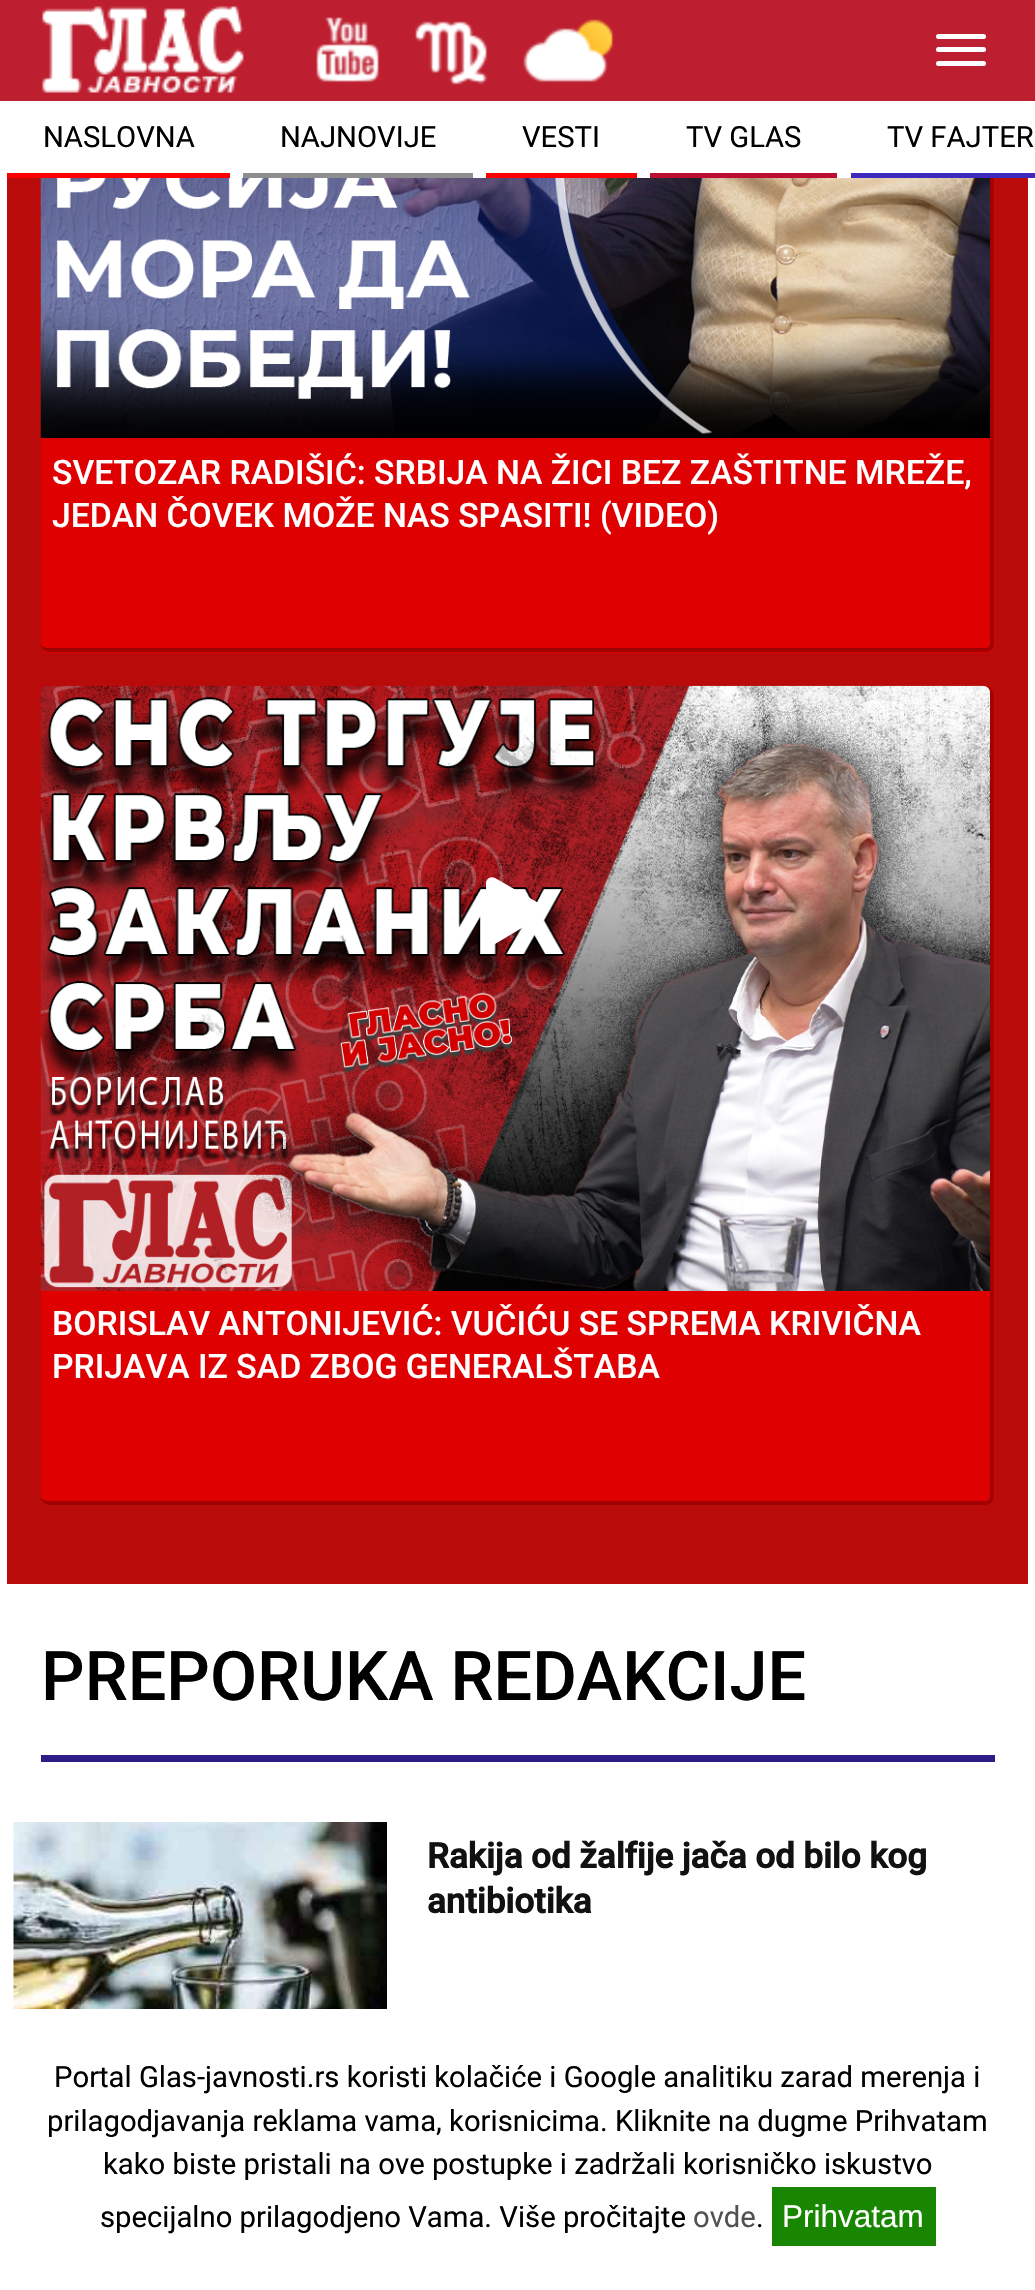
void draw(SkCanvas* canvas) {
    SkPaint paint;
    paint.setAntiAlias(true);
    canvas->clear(0xFFFFFFFF);
    paint.setColor(0xFFBA0B0B);
    canvas->drawRect(SkRect::MakeXYWH(7, 178, 1021, 1406), paint);
    paint.setColor(0xFFDF0001);
    canvas->drawRoundRect(SkRect::MakeXYWH(41, -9, 954, 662), 9, 9, paint);
    paint.setColor(0xB8880203);
    canvas->drawPath(SkPathBuilder(SkPathFillType::kEvenOdd).moveTo(50, -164).lineTo(986, -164).cubicTo(990, -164, 994, -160, 994, -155).lineTo(994, 644).cubicTo(994, 648, 990, 652, 986, 652).lineTo(50, 652).cubicTo(45, 652, 40, 648, 40, 644).lineTo(40, -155).cubicTo(40, -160, 45, -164, 50, -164).close().moveTo(50, -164).lineTo(986, -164).cubicTo(988, -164, 990, -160, 990, -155).lineTo(990, 644).cubicTo(990, 646, 988, 648, 986, 648).lineTo(50, 648).cubicTo(45, 648, 40, 646, 40, 644).lineTo(40, -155).cubicTo(40, -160, 45, -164, 50, -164).close().detach(), paint);
    paint.setColor(0xFFBE1F30);
    canvas->drawRect(SkRect::MakeXYWH(0, 0, 1035, 101), paint);
    canvas->drawImageRect(SkImages::DeferredFromEncodedData(SkData::MakeFromFileName("img1.png")), SkRect::MakeXYWH(42, 6, 202, 87), SkSamplingOptions());
    canvas->drawImageRect(SkImages::DeferredFromEncodedData(SkData::MakeFromFileName("img2.png")), SkRect::MakeXYWH(316, 17, 64, 66), SkSamplingOptions());
    canvas->drawImageRect(SkImages::DeferredFromEncodedData(SkData::MakeFromFileName("img3.png")), SkRect::MakeXYWH(415, 21, 73, 64), SkSamplingOptions());
    canvas->drawImageRect(SkImages::DeferredFromEncodedData(SkData::MakeFromFileName("img4.png")), SkRect::MakeXYWH(523, 19, 91, 64), SkSamplingOptions());
    paint.setColor(0xFFFFFFFF);
    canvas->drawRoundRect(SkRect::MakeXYWH(936, 47, 50, 5), 2.5f, 2.5f, paint);
    canvas->drawRoundRect(SkRect::MakeXYWH(936, 34, 50, 5), 2.5f, 2.5f, paint);
    canvas->drawRoundRect(SkRect::MakeXYWH(936, 61, 50, 5), 2.5f, 2.5f, paint);
    canvas->drawRect(SkRect::MakeXYWH(41, 101, 954, 77), paint);
    paint.setColor(0xFFFE0000);
    canvas->drawRect(SkRect::MakeXYWH(7, 173, 223, 5), paint);
    SkFont font1(fontMgr->matchFamilyStyle("Roboto", SkFontStyle::Normal()), 29.25f);
    font1.setSubpixel(true);
    paint.setColor(0xFF000000);
    canvas->drawString("NASLOVNA", 43, 147, font1, paint);
    paint.setColor(0xFF8E8E8E);
    canvas->drawRect(SkRect::MakeXYWH(243, 173, 230, 5), paint);
    paint.setColor(0xFF000000);
    canvas->drawString("NAJNOVIJE", 280, 147, font1, paint);
    paint.setColor(0xFFFE0000);
    canvas->drawRect(SkRect::MakeXYWH(486, 173, 151, 5), paint);
    paint.setColor(0xFF000000);
    canvas->drawString("VESTI", 522, 147, font1, paint);
    paint.setColor(0xFFBB0D30);
    canvas->drawRect(SkRect::MakeXYWH(650, 173, 187, 5), paint);
    paint.setColor(0xFF000000);
    canvas->drawString("TV GLAS", 686, 147, font1, paint);
    paint.setColor(0xFF3E29BF);
    canvas->drawRect(SkRect::MakeXYWH(851, 173, 184, 5), paint);
    paint.setColor(0xFF000000);
    canvas->drawString("TV FAJTER", 887, 147, font1, paint);
    canvas->drawImageRect(SkImages::DeferredFromEncodedData(SkData::MakeFromFileName("img5.png")), SkRect::MakeXYWH(40, 178, 950, 261), SkSamplingOptions());
    SkFont font2(fontMgr->matchFamilyStyle("Roboto", SkFontStyle(500, SkFontStyle::kNormal_Width, SkFontStyle::kUpright_Slant)), 33.75f);
    font2.setSubpixel(true);
    paint.setColor(0xFFFFFFFF);
    canvas->drawString("SVETOZAR RADIŠIĆ: SRBIJA NA ŽICI BEZ ZAŠTITNE MREŽE,", 52, 484, font2, paint);
    canvas->drawString("JEDAN ČOVEK MOŽE NAS SPASITI! (VIDEO)", 52, 527, font2, paint);
    paint.setColor(0xFFDF0001);
    canvas->drawRoundRect(SkRect::MakeXYWH(41, 686, 954, 819), 9, 9, paint);
    paint.setColor(0xB8880203);
    canvas->drawPath(SkPathBuilder(SkPathFillType::kEvenOdd).moveTo(50, 686).lineTo(986, 686).cubicTo(990, 686, 994, 690, 994, 695).lineTo(994, 1496).cubicTo(994, 1501, 990, 1505, 986, 1505).lineTo(50, 1505).cubicTo(45, 1505, 40, 1501, 40, 1496).lineTo(40, 695).cubicTo(40, 690, 45, 686, 50, 686).close().moveTo(50, 686).lineTo(986, 686).cubicTo(988, 686, 990, 690, 990, 695).lineTo(990, 1496).cubicTo(990, 1499, 988, 1501, 986, 1501).lineTo(50, 1501).cubicTo(45, 1501, 40, 1499, 40, 1496).lineTo(40, 695).cubicTo(40, 690, 45, 686, 50, 686).close().detach(), paint);
    canvas->drawImageRect(SkImages::DeferredFromEncodedData(SkData::MakeFromFileName("img6.png")), SkRect::MakeXYWH(40, 685, 950, 606), SkSamplingOptions());
    paint.setColor(0xFFFFFFFF);
    canvas->drawPath(SkPathBuilder().moveTo(542, 905).cubicTo(544, 907, 545, 908, 545, 911).cubicTo(545, 913, 544, 915, 542, 916).lineTo(495, 944).cubicTo(493, 945, 491, 945, 489, 944).cubicTo(487, 942, 486, 941, 486, 938).lineTo(486, 883).cubicTo(486, 881, 487, 879, 489, 878).cubicTo(491, 877, 493, 877, 495, 878).close().detach(), paint);
    canvas->drawString("BORISLAV ANTONIJEVIĆ: VUČIĆU SE SPREMA KRIVIČNA", 52, 1335, font2, paint);
    canvas->drawString("PRIJAVA IZ SAD ZBOG GENERALŠTABA", 52, 1378, font2, paint);
    SkFont font3(fontMgr->matchFamilyStyle("Roboto", SkFontStyle(500, SkFontStyle::kNormal_Width, SkFontStyle::kUpright_Slant)), 68.4f);
    font3.setSubpixel(true);
    paint.setColor(0xFF000000);
    canvas->drawString("PREPORUKA REDAKCIJE", 41, 1700, font3, paint);
    paint.setColor(0xFF2E1D86);
    canvas->drawRect(SkRect::MakeXYWH(41, 1755, 954, 7), paint);
    canvas->drawImageRect(SkImages::DeferredFromEncodedData(SkData::MakeFromFileName("img7.png")), SkRect::MakeXYWH(13, 1822, 374, 187), SkSamplingOptions());
    SkFont font4(fontMgr->matchFamilyStyle("Roboto", SkFontStyle::Bold()), 34.9f);
    font4.setSubpixel(true);
    paint.setColor(0xFF111111);
    canvas->drawString("Rakija od žalfije jača od bilo kog", 427, 1868, font4, paint);
    canvas->drawString("antibiotika", 427, 1913, font4, paint);
    paint.setColor(0xFF000000);
    canvas->drawString("Portal Glas-javnosti.rs koristi kolačiće i Google analitiku zarad merenja i", 54, 2087, font1, paint);
    canvas->drawString("prilagodjavanja reklama vama, korisnicima. Kliknite na dugme Prihvatam", 47, 2131, font1, paint);
    canvas->drawString("kako biste pristali na ove postupke i zadržali korisničko iskustvo", 103, 2174, font1, paint);
    canvas->drawString("specijalno prilagodjeno Vama. Više pročitajte", 100, 2227, font1, paint);
    paint.setColor(0xFF515151);
    canvas->drawString("ovde", 693, 2227, font1, paint);
    paint.setColor(0xFF000000);
    canvas->drawString(".", 756, 2227, font1, paint);
    paint.setColor(0xFF188600);
    canvas->drawRect(SkRect::MakeXYWH(772, 2187, 164, 59), paint);
    SkFont font5(fontMgr->matchFamilyStyle("Liberation Sans", SkFontStyle::Normal()), 31.5f);
    font5.setSubpixel(true);
    paint.setColor(0xFFFFFFFF);
    canvas->drawString("Prihvatam", 782, 2227, font5, paint);
}
